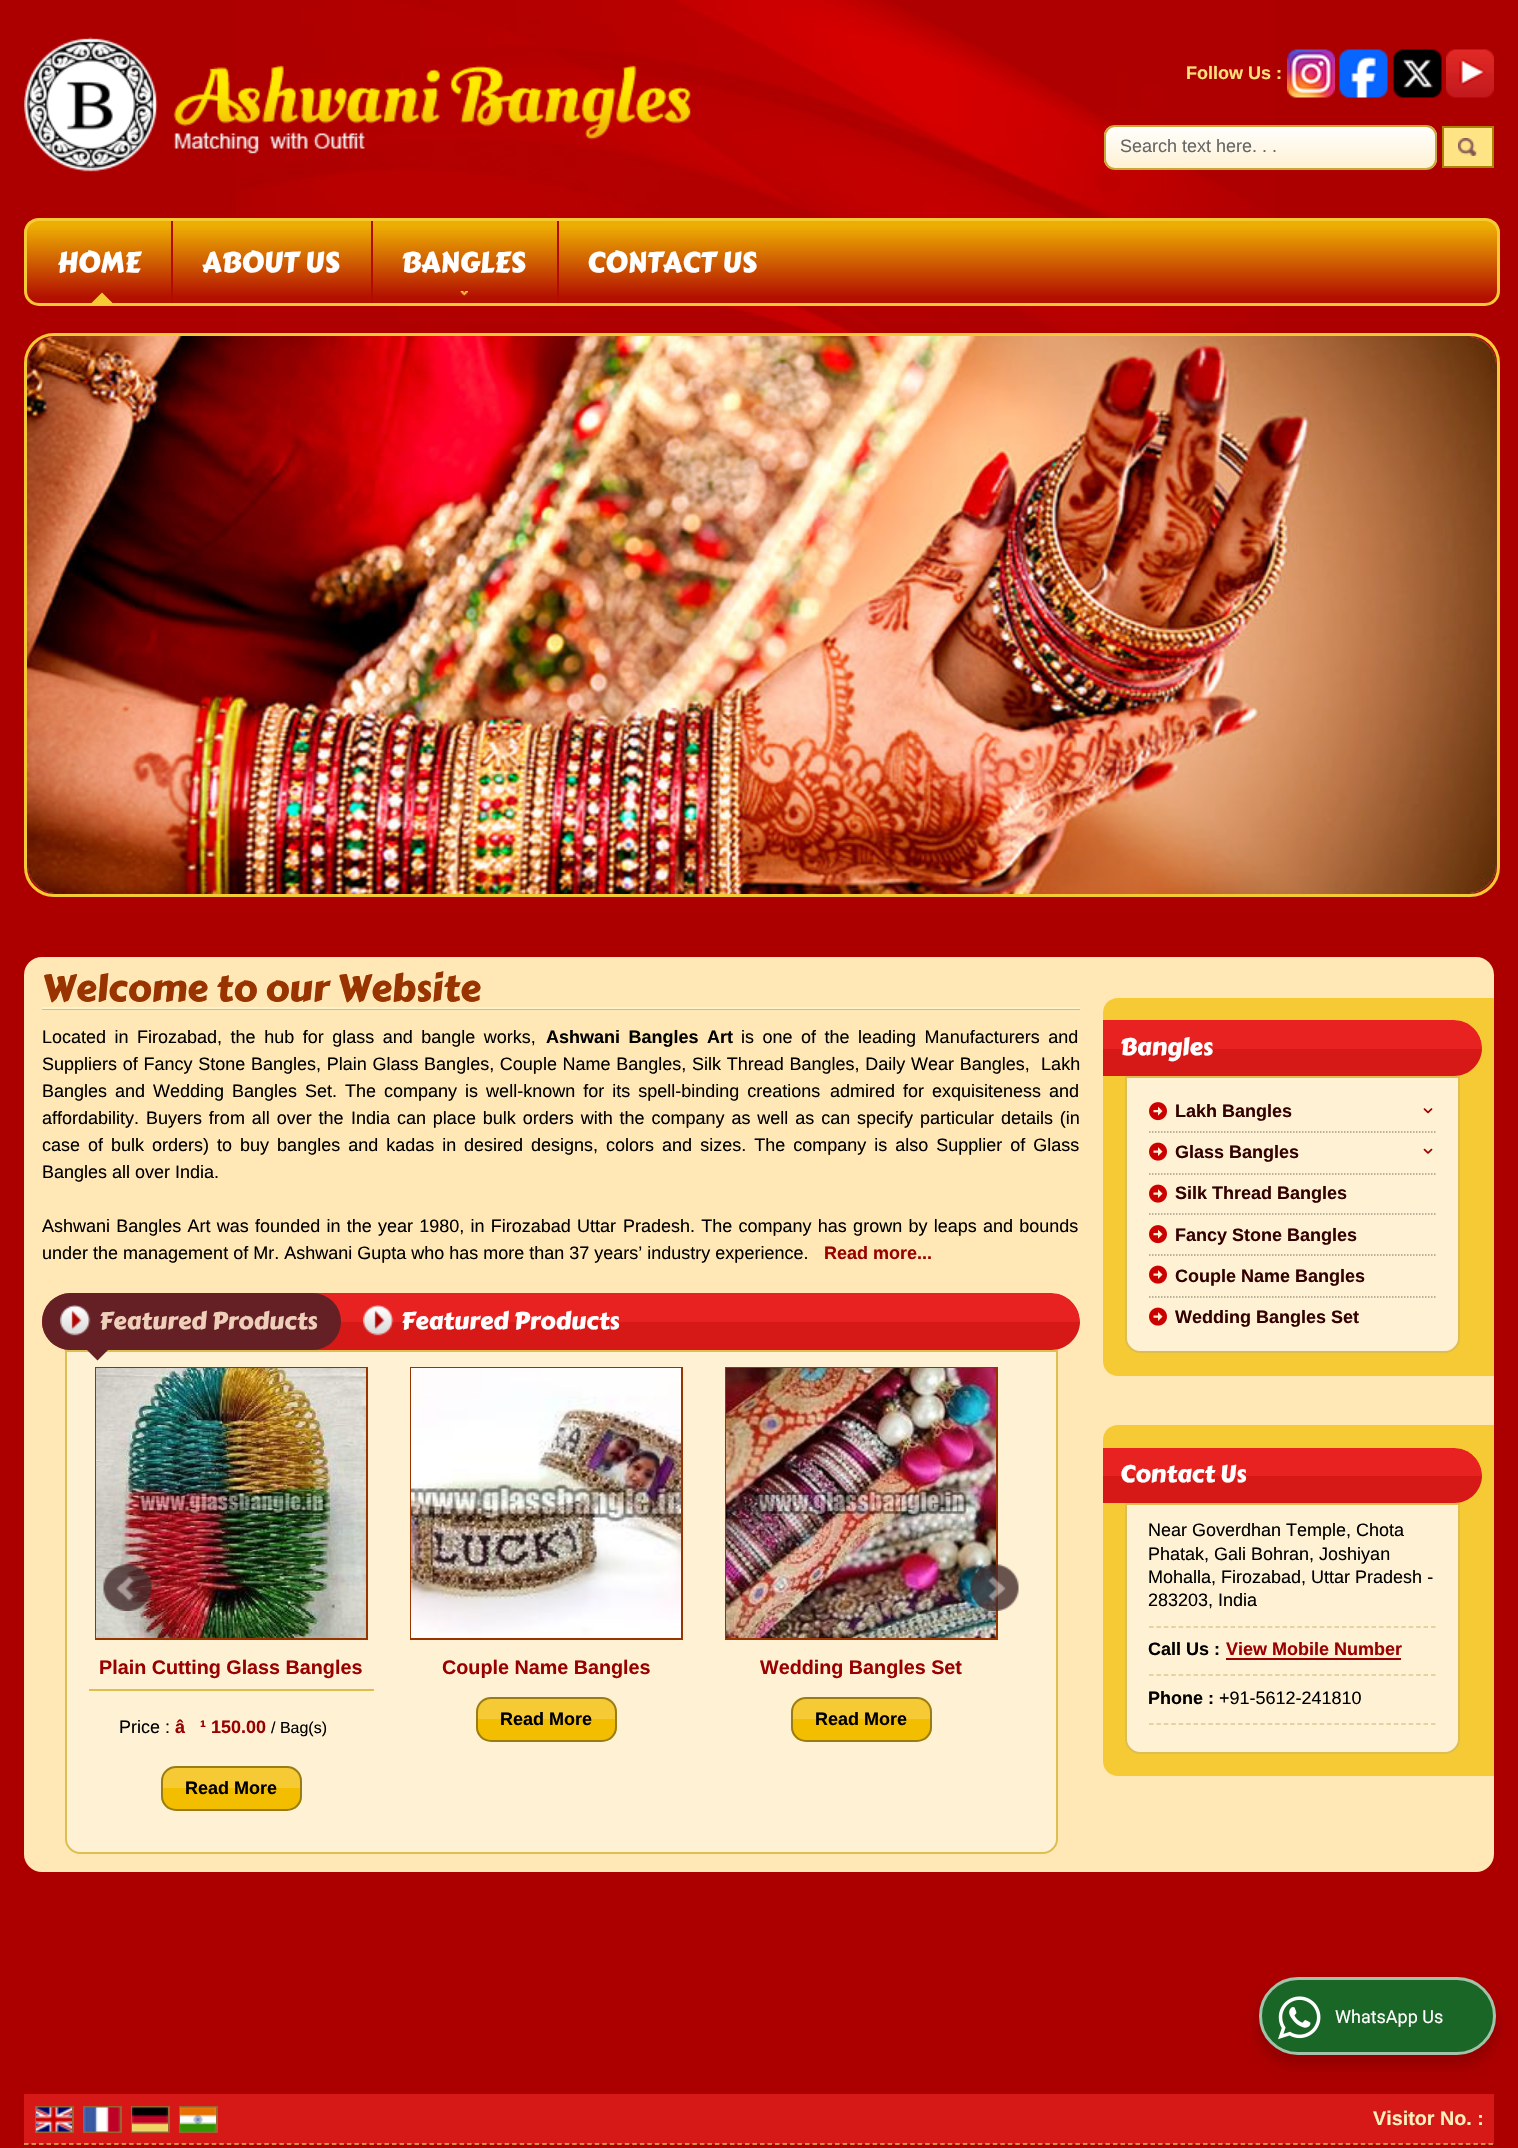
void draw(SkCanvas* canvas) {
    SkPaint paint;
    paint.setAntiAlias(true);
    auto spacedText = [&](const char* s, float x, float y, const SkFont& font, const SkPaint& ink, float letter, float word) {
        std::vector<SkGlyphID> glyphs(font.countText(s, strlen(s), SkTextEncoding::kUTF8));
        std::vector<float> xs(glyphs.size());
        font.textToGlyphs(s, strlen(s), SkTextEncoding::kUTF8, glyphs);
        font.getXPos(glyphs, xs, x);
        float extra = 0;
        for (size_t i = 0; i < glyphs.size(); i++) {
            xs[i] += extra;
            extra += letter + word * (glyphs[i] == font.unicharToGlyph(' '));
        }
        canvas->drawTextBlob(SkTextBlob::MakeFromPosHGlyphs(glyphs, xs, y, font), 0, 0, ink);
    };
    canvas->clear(0xFFAC0000);
    canvas->drawImageRect(SkImages::DeferredFromEncodedData(SkData::MakeFromFileName("img1.png")), SkRect::MakeXYWH(236, 0, 1039, 333), SkSamplingOptions());
    canvas->drawImageRect(SkImages::DeferredFromEncodedData(SkData::MakeFromFileName("img2.png")), SkRect::MakeXYWH(24, 37, 667, 135), SkSamplingOptions());
    SkFont font1(fontMgr->matchFamilyStyle("Liberation Sans", SkFontStyle::Bold()), 18);
    font1.setSubpixel(true);
    paint.setColor(0xFFFFE17C);
    canvas->drawString("Follow Us :", 1186, 79, font1, paint);
    canvas->drawImageRect(SkImages::DeferredFromEncodedData(SkData::MakeFromFileName("img3.png")), SkRect::MakeXYWH(1287, 49, 48, 49), SkSamplingOptions());
    canvas->drawImageRect(SkImages::DeferredFromEncodedData(SkData::MakeFromFileName("img4.png")), SkRect::MakeXYWH(1339, 49, 49, 49), SkSamplingOptions());
    canvas->drawImageRect(SkImages::DeferredFromEncodedData(SkData::MakeFromFileName("img5.png")), SkRect::MakeXYWH(1393, 49, 49, 49), SkSamplingOptions());
    canvas->drawImageRect(SkImages::DeferredFromEncodedData(SkData::MakeFromFileName("img6.png")), SkRect::MakeXYWH(1446, 49, 48, 49), SkSamplingOptions());
    canvas->save();
    canvas->clipPath(SkPathBuilder().moveTo(1115, 125).lineTo(1426, 125).cubicTo(1432, 125, 1437, 130, 1437, 136).lineTo(1437, 159).cubicTo(1437, 165, 1432, 170, 1426, 170).lineTo(1115, 170).cubicTo(1109, 170, 1104, 165, 1104, 159).lineTo(1104, 136).cubicTo(1104, 130, 1109, 125, 1115, 125).close().detach(), true);
    {
        const SkColor colors[] = {0xFFFFFFFF, 0xFFFFF1D3};
        const float stops[] = {0, 1};
        const SkPoint ends[] = {{1271, 126}, {1271, 168}};
        paint.setShader(SkGradientShader::MakeLinear(ends, colors, stops, 2, SkTileMode::kClamp));
        paint.setAlpha(255);
    }
    canvas->drawRect(SkRect::MakeXYWH(1104, 126, 333, 42), paint);
    canvas->restore();
    paint.setStyle(SkPaint::kStroke_Style);
    paint.setStrokeWidth(2);
    paint.setShader(nullptr);
    paint.setColor(0xFFCAA835);
    canvas->drawRoundRect(SkRect::MakeXYWH(1105, 126, 331, 43), 10, 10, paint);
    SkFont font2(fontMgr->matchFamilyStyle("Liberation Sans", SkFontStyle::Normal()), 18);
    font2.setSubpixel(true);
    paint.setStyle(SkPaint::kFill_Style);
    paint.setColor(0xFF666666);
    canvas->drawString("Search text here. . .", 1120, 152, font2, paint);
    paint.setColor(0xFFFFE486);
    canvas->drawRect(SkRect::MakeXYWH(1443, 127, 50, 40), paint);
    paint.setStyle(SkPaint::kStroke_Style);
    paint.setColor(0xFFAA8505);
    canvas->drawRect(SkRect::MakeXYWH(1443, 127, 50, 40), paint);
    canvas->drawImageRect(SkImages::DeferredFromEncodedData(SkData::MakeFromFileName("img7.png")), SkRect::MakeXYWH(1458, 138, 19, 18), SkSamplingOptions());
    canvas->save();
    canvas->clipPath(SkPathBuilder().moveTo(39, 218).lineTo(1485, 218).cubicTo(1493.5f, 218, 1500, 224.5f, 1500, 233).lineTo(1500, 291).cubicTo(1500, 299.5f, 1493.5f, 306, 1485, 306).lineTo(39, 306).cubicTo(30.5f, 306, 24, 299.5f, 24, 291).lineTo(24, 233).cubicTo(24, 224.5f, 30.5f, 218, 39, 218).close().detach(), true);
    paint.setStyle(SkPaint::kFill_Style);
    {
        const SkColor colors[] = {0xFFEDAE03, 0xFFB31000};
        const float stops[] = {0.07f, 0.93f};
        const SkPoint ends[] = {{762, 220}, {762, 303}};
        paint.setShader(SkGradientShader::MakeLinear(ends, colors, stops, 2, SkTileMode::kClamp));
        paint.setAlpha(255);
    }
    canvas->drawRect(SkRect::MakeXYWH(24, 221, 1476, 82), paint);
    canvas->restore();
    paint.setStyle(SkPaint::kStroke_Style);
    paint.setStrokeWidth(3);
    paint.setShader(nullptr);
    paint.setColor(0xFFF5CA35);
    canvas->drawRoundRect(SkRect::MakeXYWH(25.5f, 219.5f, 1473, 85), 13.5f, 13.5f, paint);
    SkFont font3(fontMgr->matchFamilyStyle("Carter One", SkFontStyle::Normal()), 28.5f);
    font3.setSubpixel(true);
    paint.setStyle(SkPaint::kFill_Style);
    paint.setColor(0xFFFFFFFF);
    canvas->drawString("HOME", 57, 272, font3, paint);
    paint.setColor(0xFFF5CA35);
    canvas->drawPath(SkPathBuilder().moveTo(112.5f, 303).lineTo(91.5f, 303).lineTo(102, 292.5f).close().detach(), paint);
    paint.setColor(0xFFB20C00);
    canvas->drawRect(SkRect::MakeXYWH(171, 221, 2, 82), paint);
    paint.setColor(0xFFFFFFFF);
    canvas->drawString("ABOUT US", 202, 272, font3, paint);
    paint.setColor(0xFFB20C00);
    canvas->drawRect(SkRect::MakeXYWH(371, 221, 2, 82), paint);
    paint.setColor(0xFFFFFFFF);
    canvas->drawString("BANGLES", 401, 272, font3, paint);
    canvas->drawImageRect(SkImages::DeferredFromEncodedData(SkData::MakeFromFileName("img8.png")), SkRect::MakeXYWH(460, 291, 8, 5), SkSamplingOptions());
    paint.setColor(0xFFB20C00);
    canvas->drawRect(SkRect::MakeXYWH(557, 221, 2, 82), paint);
    paint.setColor(0xFFFFFFFF);
    canvas->drawString("CONTACT US", 587, 272, font3, paint);
    paint.setStyle(SkPaint::kStroke_Style);
    paint.setColor(0xFFF5CA35);
    canvas->drawRoundRect(SkRect::MakeXYWH(25.5f, 334.5f, 1473, 561), 28.5f, 28.5f, paint);
    canvas->drawImageRect(SkImages::DeferredFromEncodedData(SkData::MakeFromFileName("img9.png")), SkRect::MakeXYWH(27, 336, 1470, 558), SkSamplingOptions());
    paint.setStyle(SkPaint::kFill_Style);
    paint.setColor(0xFFFFE8B6);
    canvas->drawRoundRect(SkRect::MakeXYWH(24, 957, 1470, 915), 18, 18, paint);
    paint.setColor(0xFFDFBE4F);
    canvas->drawRect(SkRect::MakeXYWH(42, 1009, 1038, 1), paint);
    paint.setColor(0xFFFFF3CC);
    canvas->drawRect(SkRect::MakeXYWH(42, 1007, 1038, 2), paint);
    SkFont font4(fontMgr->matchFamilyStyle("Carter One", SkFontStyle::Normal()), 37.5f);
    font4.setSubpixel(true);
    paint.setColor(0xFF993300);
    canvas->drawString("Welcome to our Website", 42, 1001, font4, paint);
    paint.setColor(0xFF000000);
    spacedText("Located in Firozabad, the hub for glass and bangle works,", 42, 1043, font2, paint, 0, 3.5f);
    spacedText("Ashwani Bangles Art", 546, 1043, font1, paint, 0, 3.5f);
    spacedText("is one of the leading Manufacturers and", 741, 1043, font2, paint, 0, 3.5f);
    spacedText("Suppliers of Fancy Stone Bangles, Plain Glass Bangles, Couple Name Bangles, Silk Thread Bangles, Daily Wear Bangles,  Lakh", 42, 1070, font2, paint, 0, 0.7f);
    spacedText("Bangles and Wedding", 42, 1097, font2, paint, 0, 3);
    spacedText("Bangles Set. The company is well-known for its spell-binding creations", 232, 1097, font2, paint, 0, 3);
    spacedText("admired for exquisiteness and", 830, 1097, font2, paint, 0, 3);
    spacedText("affordability. Buyers from all over the", 42, 1124, font2, paint, 0, 1.9f);
    spacedText("India can place bulk orders with the company as well as can specify", 351, 1124, font2, paint, 0, 1.9f);
    spacedText("particular details (in", 920, 1124, font2, paint, 0, 1.9f);
    spacedText("case of bulk orders) to buy bangles and kadas in", 42, 1151, font2, paint, 0, 3);
    spacedText("desired designs, colors and sizes. The company is also Supplier of Glass", 464, 1151, font2, paint, 0, 3);
    canvas->drawString("Bangles all over India.", 42, 1178, font2, paint);
    spacedText("Ashwani Bangles Art was founded in the year 1980, in Firozabad Uttar", 42, 1232, font2, paint, 0, 1.25f);
    spacedText("Pradesh. The company has grown by leaps and bounds", 623, 1232, font2, paint, 0, 1.25f);
    canvas->drawString("under the management of Mr. Ashwani Gupta who has more than 37 years’ industry experience.", 42, 1259, font2, paint);
    paint.setColor(0xFF990000);
    canvas->drawString("Read more...", 824, 1259, font1, paint);
    canvas->save();
    canvas->clipPath(SkPathBuilder().moveTo(70.5f, 1293).lineTo(1051.5f, 1293).cubicTo(1067, 1293, 1080, 1306, 1080, 1321.5f).cubicTo(1080, 1337, 1067, 1350, 1051.5f, 1350).lineTo(70.5f, 1350).cubicTo(55, 1350, 42, 1337, 42, 1321.5f).cubicTo(42, 1306, 55, 1293, 70.5f, 1293).close().detach(), true);
    paint.setColor(0xFFE82221);
    canvas->drawPath(SkPathBuilder().moveTo(70.5f, 1293).lineTo(1051.5f, 1293).cubicTo(1067, 1293, 1080, 1306, 1080, 1321.5f).lineTo(1080, 1322).lineTo(42, 1322).lineTo(42, 1321.5f).cubicTo(42, 1306, 55, 1293, 70.5f, 1293).close().detach(), paint);
    paint.setColor(0xFFD61817);
    canvas->drawRect(SkRect::MakeXYWH(42, 1322, 1038, 28), paint);
    canvas->restore();
    paint.setColor(0xFF642024);
    canvas->drawRoundRect(SkRect::MakeXYWH(42, 1293, 299, 57), 28.5f, 28.5f, paint);
    canvas->drawImageRect(SkImages::DeferredFromEncodedData(SkData::MakeFromFileName("img10.png")), SkRect::MakeXYWH(60, 1305, 31, 31), SkSamplingOptions());
    SkFont font5(fontMgr->matchFamilyStyle("Carter One", SkFontStyle::Normal()), 24);
    font5.setSubpixel(true);
    paint.setColor(0xFFEECFBA);
    canvas->drawString("Featured Products", 99, 1329, font5, paint);
    paint.setColor(0xFFFFF1D3);
    canvas->drawPath(SkPathBuilder().moveTo(66, 1351).lineTo(1057, 1351).lineTo(1057, 1839).cubicTo(1057, 1846.5f, 1050.5f, 1853, 1043, 1853).lineTo(80, 1853).cubicTo(72.5f, 1853, 66, 1846.5f, 66, 1839).close().detach(), paint);
    paint.setStyle(SkPaint::kStroke_Style);
    paint.setStrokeWidth(2);
    paint.setColor(0xFFDFBE4F);
    canvas->drawPath(SkPathBuilder().moveTo(66, 1351).lineTo(1057, 1351).lineTo(1057, 1839).cubicTo(1057, 1846.5f, 1050.5f, 1853, 1043, 1853).lineTo(80, 1853).cubicTo(72.5f, 1853, 66, 1846.5f, 66, 1839).close().detach(), paint);
    paint.setStyle(SkPaint::kFill_Style);
    paint.setColor(0xFF642024);
    canvas->drawPath(SkPathBuilder().moveTo(87, 1350).lineTo(108, 1350).lineTo(97.5f, 1360.5f).close().detach(), paint);
    canvas->drawImageRect(SkImages::DeferredFromEncodedData(SkData::MakeFromFileName("img11.png")), SkRect::MakeXYWH(363, 1305, 31, 31), SkSamplingOptions());
    paint.setColor(0xFFFFFFFF);
    canvas->drawString("Featured Products", 401, 1329, font5, paint);
    paint.setStyle(SkPaint::kStroke_Style);
    paint.setColor(0xFF993300);
    canvas->drawRect(SkRect::MakeXYWH(96, 1368, 271, 271), paint);
    canvas->drawImageRect(SkImages::DeferredFromEncodedData(SkData::MakeFromFileName("img14.png")), SkRect::MakeXYWH(96, 1368, 270, 270), SkSamplingOptions());
    canvas->drawImageRect(SkImages::DeferredFromEncodedData(SkData::MakeFromFileName("img12.png")), SkRect::MakeXYWH(103, 1564, 49, 47), SkSamplingOptions());
    canvas->drawRect(SkRect::MakeXYWH(726, 1368, 271, 271), paint);
    canvas->drawImageRect(SkImages::DeferredFromEncodedData(SkData::MakeFromFileName("img16.png")), SkRect::MakeXYWH(726, 1368, 270, 270), SkSamplingOptions());
    canvas->drawImageRect(SkImages::DeferredFromEncodedData(SkData::MakeFromFileName("img13.png")), SkRect::MakeXYWH(970, 1564, 49, 47), SkSamplingOptions());
    SkFont font6(fontMgr->matchFamilyStyle("Liberation Sans", SkFontStyle::Bold()), 19.75f);
    font6.setSubpixel(true);
    paint.setStyle(SkPaint::kFill_Style);
    paint.setColor(0xFF990000);
    canvas->drawString("Plain Cutting Glass Bangles", 99, 1674, font6, paint);
    paint.setColor(0xFFDFBE4F);
    canvas->drawRect(SkRect::MakeXYWH(89, 1689, 285, 2), paint);
    paint.setColor(0xFF000000);
    canvas->drawString("Price :", 119, 1733, font2, paint);
    paint.setColor(0xFF990000);
    canvas->drawString("â", 175, 1733, font1, paint);
    canvas->drawString("¹ 150.00", 200, 1733, font1, paint);
    SkFont font7(fontMgr->matchFamilyStyle("Liberation Sans", SkFontStyle::Normal()), 16);
    font7.setSubpixel(true);
    paint.setColor(0xFF000000);
    canvas->drawString("/ Bag(s)", 271, 1733, font7, paint);
    canvas->save();
    canvas->clipPath(SkPathBuilder().moveTo(176, 1766).lineTo(287, 1766).cubicTo(295.5f, 1766, 302, 1772.5f, 302, 1781).lineTo(302, 1796).cubicTo(302, 1804.5f, 295.5f, 1811, 287, 1811).lineTo(176, 1811).cubicTo(167.5f, 1811, 161, 1804.5f, 161, 1796).lineTo(161, 1781).cubicTo(161, 1772.5f, 167.5f, 1766, 176, 1766).close().detach(), true);
    paint.setColor(0xFFF5CA35);
    canvas->drawRect(SkRect::MakeXYWH(161, 1767, 141, 21), paint);
    paint.setColor(0xFFF4BE00);
    canvas->drawRect(SkRect::MakeXYWH(161, 1788, 141, 21), paint);
    canvas->restore();
    paint.setStyle(SkPaint::kStroke_Style);
    paint.setColor(0xFF9A7C16);
    canvas->drawRoundRect(SkRect::MakeXYWH(162, 1767, 139, 43), 14, 14, paint);
    paint.setStyle(SkPaint::kFill_Style);
    paint.setColor(0xFF000000);
    canvas->drawString("Read More", 185, 1794, font1, paint);
    paint.setStyle(SkPaint::kStroke_Style);
    paint.setColor(0xFF993300);
    canvas->drawRect(SkRect::MakeXYWH(411, 1368, 271, 271), paint);
    canvas->drawImageRect(SkImages::DeferredFromEncodedData(SkData::MakeFromFileName("img15.png")), SkRect::MakeXYWH(411, 1368, 270, 270), SkSamplingOptions());
    paint.setStyle(SkPaint::kFill_Style);
    paint.setColor(0xFF990000);
    canvas->drawString("Couple Name Bangles", 442, 1674, font6, paint);
    canvas->save();
    canvas->clipPath(SkPathBuilder().moveTo(491, 1697).lineTo(602, 1697).cubicTo(610.5f, 1697, 617, 1703.5f, 617, 1712).lineTo(617, 1727).cubicTo(617, 1735.5f, 610.5f, 1742, 602, 1742).lineTo(491, 1742).cubicTo(482.5f, 1742, 476, 1735.5f, 476, 1727).lineTo(476, 1712).cubicTo(476, 1703.5f, 482.5f, 1697, 491, 1697).close().detach(), true);
    paint.setColor(0xFFF5CA35);
    canvas->drawRect(SkRect::MakeXYWH(476, 1698, 141, 21), paint);
    paint.setColor(0xFFF4BE00);
    canvas->drawRect(SkRect::MakeXYWH(476, 1719, 141, 21), paint);
    canvas->restore();
    paint.setStyle(SkPaint::kStroke_Style);
    paint.setColor(0xFF9A7C16);
    canvas->drawRoundRect(SkRect::MakeXYWH(477, 1698, 139, 43), 14, 14, paint);
    paint.setStyle(SkPaint::kFill_Style);
    paint.setColor(0xFF000000);
    canvas->drawString("Read More", 500, 1725, font1, paint);
    paint.setColor(0xFF990000);
    canvas->drawString("Wedding Bangles Set", 760, 1674, font6, paint);
    canvas->save();
    canvas->clipPath(SkPathBuilder().moveTo(806, 1697).lineTo(917, 1697).cubicTo(925.5f, 1697, 932, 1703.5f, 932, 1712).lineTo(932, 1727).cubicTo(932, 1735.5f, 925.5f, 1742, 917, 1742).lineTo(806, 1742).cubicTo(797.5f, 1742, 791, 1735.5f, 791, 1727).lineTo(791, 1712).cubicTo(791, 1703.5f, 797.5f, 1697, 806, 1697).close().detach(), true);
    paint.setColor(0xFFF5CA35);
    canvas->drawRect(SkRect::MakeXYWH(791, 1698, 141, 21), paint);
    paint.setColor(0xFFF4BE00);
    canvas->drawRect(SkRect::MakeXYWH(791, 1719, 141, 21), paint);
    canvas->restore();
    paint.setStyle(SkPaint::kStroke_Style);
    paint.setColor(0xFF9A7C16);
    canvas->drawRoundRect(SkRect::MakeXYWH(792, 1698, 139, 43), 14, 14, paint);
    paint.setStyle(SkPaint::kFill_Style);
    paint.setColor(0xFF000000);
    canvas->drawString("Read More", 815, 1725, font1, paint);
    paint.setColor(0xFFF5CA35);
    canvas->drawPath(SkPathBuilder().moveTo(1118, 998).lineTo(1494, 998).lineTo(1494, 1376).lineTo(1118, 1376).cubicTo(1109.5f, 1376, 1103, 1369.5f, 1103, 1361).lineTo(1103, 1013).cubicTo(1103, 1004.5f, 1109.5f, 998, 1118, 998).close().detach(), paint);
    canvas->save();
    canvas->clipPath(SkPathBuilder().moveTo(1103, 1020).lineTo(1454, 1020).cubicTo(1469.5f, 1020, 1482, 1032.5f, 1482, 1048).cubicTo(1482, 1063.5f, 1469.5f, 1076, 1454, 1076).lineTo(1103, 1076).close().detach(), true);
    paint.setColor(0xFFE82221);
    canvas->drawPath(SkPathBuilder().moveTo(1103, 1020).lineTo(1454, 1020).cubicTo(1469.5f, 1020, 1482, 1032.5f, 1482, 1048).lineTo(1482, 1049).lineTo(1103, 1049).close().detach(), paint);
    paint.setColor(0xFFD61817);
    canvas->drawRect(SkRect::MakeXYWH(1103, 1049, 379, 27), paint);
    canvas->restore();
    paint.setColor(0xFFFFFFFF);
    canvas->drawString("Bangles", 1120, 1055, font5, paint);
    paint.setColor(0xFFFFF1D3);
    canvas->drawPath(SkPathBuilder().moveTo(1126, 1077).lineTo(1459, 1077).lineTo(1459, 1338).cubicTo(1459, 1345.5f, 1452.5f, 1352, 1445, 1352).lineTo(1140, 1352).cubicTo(1132.5f, 1352, 1126, 1345.5f, 1126, 1338).close().detach(), paint);
    paint.setStyle(SkPaint::kStroke_Style);
    paint.setColor(0xFFDFBE4F);
    canvas->drawPath(SkPathBuilder().moveTo(1126, 1077).lineTo(1459, 1077).lineTo(1459, 1338).cubicTo(1459, 1345.5f, 1452.5f, 1352, 1445, 1352).lineTo(1140, 1352).cubicTo(1132.5f, 1352, 1126, 1345.5f, 1126, 1338).close().detach(), paint);
    paint.setStrokeWidth(1.5f);
    paint.setColor(0xFFA39C85);
    paint.setPathEffect(SkDashPathEffect::Make({{1.5f, 1.5f}}, 0));
    canvas->drawPath(SkPathBuilder().moveTo(1149, 1132).lineTo(1435.5f, 1132).detach(), paint);
    paint.setPathEffect(nullptr);
    canvas->drawImageRect(SkImages::DeferredFromEncodedData(SkData::MakeFromFileName("img17.png")), SkRect::MakeXYWH(1149, 1102, 18, 19), SkSamplingOptions());
    paint.setStyle(SkPaint::kFill_Style);
    paint.setColor(0xFF330000);
    canvas->drawString("Lakh Bangles", 1175, 1117, font1, paint);
    canvas->drawImageRect(SkImages::DeferredFromEncodedData(SkData::MakeFromFileName("img18.png")), SkRect::MakeXYWH(1423, 1108, 10, 6), SkSamplingOptions());
    paint.setStyle(SkPaint::kStroke_Style);
    paint.setColor(0xFFA39C85);
    paint.setPathEffect(SkDashPathEffect::Make({{1.5f, 1.5f}}, 0));
    canvas->drawPath(SkPathBuilder().moveTo(1149, 1174).lineTo(1435.5f, 1174).detach(), paint);
    paint.setPathEffect(nullptr);
    canvas->drawImageRect(SkImages::DeferredFromEncodedData(SkData::MakeFromFileName("img19.png")), SkRect::MakeXYWH(1149, 1142, 18, 19), SkSamplingOptions());
    paint.setStyle(SkPaint::kFill_Style);
    paint.setColor(0xFF330000);
    canvas->drawString("Glass Bangles", 1175, 1158, font1, paint);
    canvas->drawImageRect(SkImages::DeferredFromEncodedData(SkData::MakeFromFileName("img20.png")), SkRect::MakeXYWH(1423, 1148, 10, 6), SkSamplingOptions());
    paint.setStyle(SkPaint::kStroke_Style);
    paint.setColor(0xFFA39C85);
    paint.setPathEffect(SkDashPathEffect::Make({{1.5f, 1.5f}}, 0));
    canvas->drawPath(SkPathBuilder().moveTo(1149, 1214).lineTo(1435.5f, 1214).detach(), paint);
    paint.setPathEffect(nullptr);
    canvas->drawImageRect(SkImages::DeferredFromEncodedData(SkData::MakeFromFileName("img19.png")), SkRect::MakeXYWH(1149, 1184, 18, 19), SkSamplingOptions());
    paint.setStyle(SkPaint::kFill_Style);
    paint.setColor(0xFF330000);
    canvas->drawString("Silk Thread Bangles", 1175, 1199, font1, paint);
    paint.setStyle(SkPaint::kStroke_Style);
    paint.setColor(0xFFA39C85);
    paint.setPathEffect(SkDashPathEffect::Make({{1.5f, 1.5f}}, 0));
    canvas->drawPath(SkPathBuilder().moveTo(1149, 1255).lineTo(1435.5f, 1255).detach(), paint);
    paint.setPathEffect(nullptr);
    canvas->drawImageRect(SkImages::DeferredFromEncodedData(SkData::MakeFromFileName("img17.png")), SkRect::MakeXYWH(1149, 1225, 18, 19), SkSamplingOptions());
    paint.setStyle(SkPaint::kFill_Style);
    paint.setColor(0xFF330000);
    canvas->drawString("Fancy Stone Bangles", 1175, 1241, font1, paint);
    paint.setStyle(SkPaint::kStroke_Style);
    paint.setColor(0xFFA39C85);
    paint.setPathEffect(SkDashPathEffect::Make({{1.5f, 1.5f}}, 0));
    canvas->drawPath(SkPathBuilder().moveTo(1149, 1297).lineTo(1435.5f, 1297).detach(), paint);
    paint.setPathEffect(nullptr);
    canvas->drawImageRect(SkImages::DeferredFromEncodedData(SkData::MakeFromFileName("img19.png")), SkRect::MakeXYWH(1149, 1265, 18, 19), SkSamplingOptions());
    paint.setStyle(SkPaint::kFill_Style);
    paint.setColor(0xFF330000);
    canvas->drawString("Couple Name Bangles", 1175, 1282, font1, paint);
    canvas->drawImageRect(SkImages::DeferredFromEncodedData(SkData::MakeFromFileName("img19.png")), SkRect::MakeXYWH(1149, 1307, 18, 19), SkSamplingOptions());
    canvas->drawString("Wedding Bangles Set", 1175, 1323, font1, paint);
    paint.setColor(0xFFF5CA35);
    canvas->drawPath(SkPathBuilder().moveTo(1118, 1425).lineTo(1494, 1425).lineTo(1494, 1776).lineTo(1118, 1776).cubicTo(1109.5f, 1776, 1103, 1769.5f, 1103, 1761).lineTo(1103, 1440).cubicTo(1103, 1431.5f, 1109.5f, 1425, 1118, 1425).close().detach(), paint);
    canvas->save();
    canvas->clipPath(SkPathBuilder().moveTo(1103, 1448).lineTo(1454.5f, 1448).cubicTo(1469.5f, 1448, 1482, 1460.5f, 1482, 1475.5f).cubicTo(1482, 1490.5f, 1469.5f, 1503, 1454.5f, 1503).lineTo(1103, 1503).close().detach(), true);
    paint.setColor(0xFFE82221);
    canvas->drawPath(SkPathBuilder().moveTo(1103, 1448).lineTo(1454.5f, 1448).cubicTo(1469.5f, 1448, 1482, 1460.5f, 1482, 1475.5f).lineTo(1482, 1476).lineTo(1103, 1476).close().detach(), paint);
    paint.setColor(0xFFD61817);
    canvas->drawRect(SkRect::MakeXYWH(1103, 1476, 379, 27), paint);
    canvas->restore();
    paint.setColor(0xFFFFFFFF);
    canvas->drawString("Contact Us", 1120, 1482, font5, paint);
    paint.setColor(0xFFFFF1D3);
    canvas->drawPath(SkPathBuilder().moveTo(1126, 1504).lineTo(1459, 1504).lineTo(1459, 1739).cubicTo(1459, 1746.5f, 1452.5f, 1753, 1445, 1753).lineTo(1140, 1753).cubicTo(1132.5f, 1753, 1126, 1746.5f, 1126, 1739).close().detach(), paint);
    paint.setStyle(SkPaint::kStroke_Style);
    paint.setStrokeWidth(2);
    paint.setColor(0xFFDFBE4F);
    canvas->drawPath(SkPathBuilder().moveTo(1126, 1504).lineTo(1459, 1504).lineTo(1459, 1739).cubicTo(1459, 1746.5f, 1452.5f, 1753, 1445, 1753).lineTo(1140, 1753).cubicTo(1132.5f, 1753, 1126, 1746.5f, 1126, 1739).close().detach(), paint);
    paint.setStyle(SkPaint::kFill_Style);
    paint.setColor(0xFF000000);
    canvas->drawString("Near Goverdhan Temple, Chota", 1148, 1536, font2, paint);
    canvas->drawString("Phatak, Gali Bohran, Joshiyan", 1148, 1560, font2, paint);
    canvas->drawString("Mohalla, Firozabad, Uttar Pradesh -", 1148, 1583, font2, paint);
    canvas->drawString("283203, India", 1148, 1606, font2, paint);
    paint.setStyle(SkPaint::kStroke_Style);
    paint.setStrokeWidth(1.5f);
    paint.setColor(0xFFDCCA8D);
    paint.setPathEffect(SkDashPathEffect::Make({{4.5f, 2.92f}}, 0));
    canvas->drawPath(SkPathBuilder().moveTo(1149, 1627).lineTo(1435.5f, 1627).detach(), paint);
    paint.setPathEffect(nullptr);
    paint.setStyle(SkPaint::kFill_Style);
    paint.setColor(0xFF000000);
    canvas->drawString("Call Us :", 1148, 1655, font1, paint);
    paint.setColor(0xFF990000);
    canvas->drawString("View Mobile Number", 1226, 1655, font1, paint);
    canvas->drawRect(SkRect::MakeXYWH(1226, 1658, 175, 2), paint);
    paint.setStyle(SkPaint::kStroke_Style);
    paint.setColor(0xFFDCCA8D);
    paint.setPathEffect(SkDashPathEffect::Make({{4.5f, 2.92f}}, 0));
    canvas->drawPath(SkPathBuilder().moveTo(1149, 1675).lineTo(1435.5f, 1675).detach(), paint);
    paint.setPathEffect(nullptr);
    paint.setStyle(SkPaint::kFill_Style);
    paint.setColor(0xFF000000);
    canvas->drawString("Phone :", 1148, 1704, font1, paint);
    canvas->drawString("+91-5612-241810", 1219, 1704, font2, paint);
    paint.setStyle(SkPaint::kStroke_Style);
    paint.setColor(0xFFDCCA8D);
    paint.setPathEffect(SkDashPathEffect::Make({{4.5f, 2.92f}}, 0));
    canvas->drawPath(SkPathBuilder().moveTo(1149, 1724).lineTo(1435.5f, 1724).detach(), paint);
    paint.setPathEffect(nullptr);
    paint.setStyle(SkPaint::kFill_Style);
    paint.setColor(0x24000000);
    paint.setMaskFilter(SkMaskFilter::MakeBlur(kNormal_SkBlurStyle, 6));
    canvas->drawRoundRect(SkRect::MakeXYWH(1256, 1983, 243, 84), 42, 42, paint);
    paint.setMaskFilter(nullptr);
    paint.setColor(0xFF196626);
    canvas->drawRoundRect(SkRect::MakeXYWH(1259, 1977, 237, 78), 39, 39, paint);
    paint.setStyle(SkPaint::kStroke_Style);
    paint.setStrokeWidth(3);
    paint.setColor(0x99FFFFFF);
    canvas->drawRoundRect(SkRect::MakeXYWH(1260.5f, 1978.5f, 234, 75), 37.5f, 37.5f, paint);
    canvas->drawImageRect(SkImages::DeferredFromEncodedData(SkData::MakeFromFileName("img21.png")), SkRect::MakeXYWH(1278, 1996, 43, 44), SkSamplingOptions());
    SkFont font8(fontMgr->matchFamilyStyle("Roboto", SkFontStyle::Normal()), 18);
    font8.setSubpixel(true);
    paint.setStyle(SkPaint::kFill_Style);
    paint.setColor(0xFFFFFFFF);
    canvas->drawString("WhatsApp Us", 1335, 2023, font8, paint);
    paint.setColor(0xFFD61817);
    canvas->drawRect(SkRect::MakeXYWH(24, 2094, 1470, 50), paint);
    paint.setStyle(SkPaint::kStroke_Style);
    paint.setStrokeWidth(2);
    paint.setColor(0xFF996633);
    canvas->drawRect(SkRect::MakeXYWH(36, 2107, 37, 25), paint);
    canvas->drawRect(SkRect::MakeXYWH(84, 2107, 37, 25), paint);
    canvas->drawRect(SkRect::MakeXYWH(132, 2107, 37, 25), paint);
    canvas->drawRect(SkRect::MakeXYWH(180, 2107, 37, 25), paint);
    canvas->drawImageRect(SkImages::DeferredFromEncodedData(SkData::MakeFromFileName("img22.png")), SkRect::MakeXYWH(36, 2107, 36, 25), SkSamplingOptions());
    canvas->drawImageRect(SkImages::DeferredFromEncodedData(SkData::MakeFromFileName("img23.png")), SkRect::MakeXYWH(84, 2107, 36, 25), SkSamplingOptions());
    canvas->drawImageRect(SkImages::DeferredFromEncodedData(SkData::MakeFromFileName("img24.png")), SkRect::MakeXYWH(132, 2107, 36, 25), SkSamplingOptions());
    canvas->drawImageRect(SkImages::DeferredFromEncodedData(SkData::MakeFromFileName("img25.png")), SkRect::MakeXYWH(180, 2107, 36, 25), SkSamplingOptions());
    paint.setStyle(SkPaint::kFill_Style);
    paint.setColor(0xFFFFF0BD);
    canvas->drawString("Visitor No. :", 1373, 2125, font6, paint);
    paint.setStyle(SkPaint::kStroke_Style);
    paint.setStrokeWidth(1.5f);
    paint.setColor(0xFFDFBE4F);
    paint.setPathEffect(SkDashPathEffect::Make({{4.5f, 3.01f}}, 0));
    canvas->drawPath(SkPathBuilder().moveTo(24, 2144).lineTo(1494, 2144).detach(), paint);
    paint.setPathEffect(nullptr);
}
